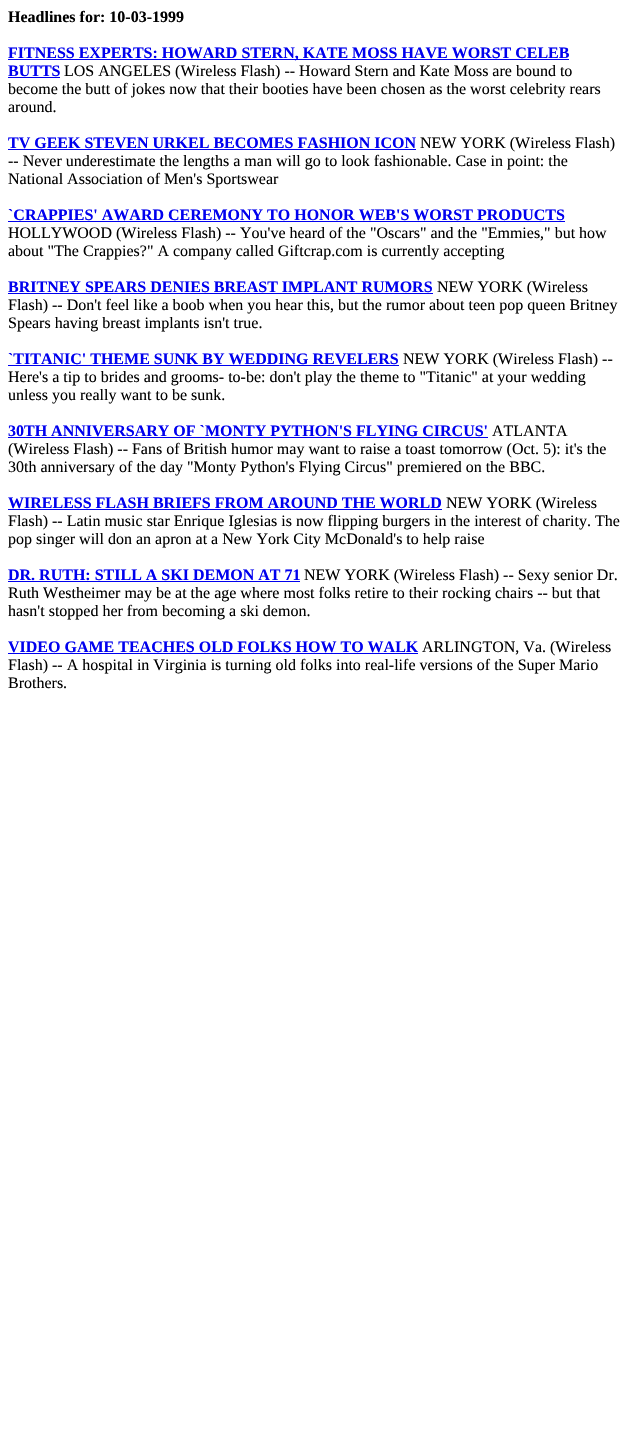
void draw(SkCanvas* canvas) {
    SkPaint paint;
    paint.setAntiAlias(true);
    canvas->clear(0xFFFFFFFF);
    SkFont font1(fontMgr->matchFamilyStyle("Liberation Serif", SkFontStyle::Bold()), 16);
    font1.setSubpixel(true);
    paint.setColor(0xFF000000);
    canvas->drawString("Headlines for: 10-03-1999", 8, 22, font1, paint);
    paint.setColor(0xFF0000EE);
    canvas->drawRect(SkRect::MakeXYWH(8, 59, 561, 1), paint);
    canvas->drawString("FITNESS EXPERTS: HOWARD STERN, KATE MOSS HAVE WORST CELEB", 8, 58, font1, paint);
    canvas->drawString("BUTTS", 8, 76, font1, paint);
    canvas->drawRect(SkRect::MakeXYWH(8, 77, 52, 1), paint);
    SkFont font2(fontMgr->matchFamilyStyle("Liberation Serif", SkFontStyle::Normal()), 16);
    font2.setSubpixel(true);
    paint.setColor(0xFF000000);
    canvas->drawString("LOS ANGELES (Wireless Flash) -- Howard Stern and Kate Moss are bound to", 64, 76, font2, paint);
    canvas->drawString("become the butt of jokes now that their booties have been chosen as the worst celebrity rears", 8, 94, font2, paint);
    canvas->drawString("around.", 8, 112, font2, paint);
    paint.setColor(0xFF0000EE);
    canvas->drawString("TV GEEK STEVEN URKEL BECOMES FASHION ICON", 8, 148, font1, paint);
    canvas->drawRect(SkRect::MakeXYWH(8, 149, 408, 1), paint);
    paint.setColor(0xFF000000);
    canvas->drawString("NEW YORK (Wireless Flash)", 420, 148, font2, paint);
    canvas->drawString("-- Never underestimate the lengths a man will go to look fashionable. Case in point: the", 8, 166, font2, paint);
    canvas->drawString("National Association of Men's Sportswear", 8, 184, font2, paint);
    paint.setColor(0xFF0000EE);
    canvas->drawString("`CRAPPIES' AWARD CEREMONY TO HONOR WEB'S WORST PRODUCTS", 8, 220, font1, paint);
    canvas->drawRect(SkRect::MakeXYWH(8, 221, 557, 1), paint);
    paint.setColor(0xFF000000);
    canvas->drawString("HOLLYWOOD (Wireless Flash) -- You've heard of the \"Oscars\" and the \"Emmies,\" but how", 8, 238, font2, paint);
    canvas->drawString("about \"The Crappies?\" A company called Giftcrap.com is currently accepting", 8, 256, font2, paint);
    paint.setColor(0xFF0000EE);
    canvas->drawString("BRITNEY SPEARS DENIES BREAST IMPLANT RUMORS", 8, 292, font1, paint);
    canvas->drawRect(SkRect::MakeXYWH(8, 293, 425, 1), paint);
    paint.setColor(0xFF000000);
    canvas->drawString("NEW YORK (Wireless", 437, 292, font2, paint);
    canvas->drawString("Flash) -- Don't feel like a boob when you hear this, but the rumor about teen pop queen Britney", 8, 310, font2, paint);
    canvas->drawString("Spears having breast implants isn't true.", 8, 328, font2, paint);
    paint.setColor(0xFF0000EE);
    canvas->drawString("`TITANIC' THEME SUNK BY WEDDING REVELERS", 8, 364, font1, paint);
    canvas->drawRect(SkRect::MakeXYWH(8, 365, 391, 1), paint);
    paint.setColor(0xFF000000);
    canvas->drawString("NEW YORK (Wireless Flash) --", 403, 364, font2, paint);
    canvas->drawString("Here's a tip to brides and grooms- to-be: don't play the theme to \"Titanic\" at your wedding", 8, 382, font2, paint);
    canvas->drawString("unless you really want to be sunk.", 8, 400, font2, paint);
    paint.setColor(0xFF0000EE);
    canvas->drawString("30TH ANNIVERSARY OF `MONTY PYTHON'S FLYING CIRCUS'", 8, 436, font1, paint);
    canvas->drawRect(SkRect::MakeXYWH(8, 437, 480, 1), paint);
    paint.setColor(0xFF000000);
    canvas->drawString("ATLANTA", 492, 436, font2, paint);
    canvas->drawString("(Wireless Flash) -- Fans of British humor may want to raise a toast tomorrow (Oct. 5): it's the", 8, 454, font2, paint);
    canvas->drawString("30th anniversary of the day \"Monty Python's Flying Circus\" premiered on the BBC.", 8, 472, font2, paint);
    paint.setColor(0xFF0000EE);
    canvas->drawString("WIRELESS FLASH BRIEFS FROM AROUND THE WORLD", 8, 508, font1, paint);
    canvas->drawRect(SkRect::MakeXYWH(8, 509, 434, 1), paint);
    paint.setColor(0xFF000000);
    canvas->drawString("NEW YORK (Wireless", 446, 508, font2, paint);
    canvas->drawString("Flash) -- Latin music star Enrique Iglesias is now flipping burgers in the interest of charity. The", 8, 526, font2, paint);
    canvas->drawString("pop singer will don an apron at a New York City McDonald's to help raise", 8, 544, font2, paint);
    paint.setColor(0xFF0000EE);
    canvas->drawString("DR. RUTH: STILL A SKI DEMON AT 71", 8, 580, font1, paint);
    canvas->drawRect(SkRect::MakeXYWH(8, 581, 292, 1), paint);
    paint.setColor(0xFF000000);
    canvas->drawString("NEW YORK (Wireless Flash) -- Sexy senior Dr.", 304, 580, font2, paint);
    canvas->drawString("Ruth Westheimer may be at the age where most folks retire to their rocking chairs -- but that", 8, 598, font2, paint);
    canvas->drawString("hasn't stopped her from becoming a ski demon.", 8, 616, font2, paint);
    paint.setColor(0xFF0000EE);
    canvas->drawString("VIDEO GAME TEACHES OLD FOLKS HOW TO WALK", 8, 652, font1, paint);
    canvas->drawRect(SkRect::MakeXYWH(8, 653, 410, 1), paint);
    paint.setColor(0xFF000000);
    canvas->drawString("ARLINGTON, Va. (Wireless", 422, 652, font2, paint);
    canvas->drawString("Flash) -- A hospital in Virginia is turning old folks into real-life versions of the Super Mario", 8, 670, font2, paint);
    canvas->drawString("Brothers.", 8, 688, font2, paint);
}
